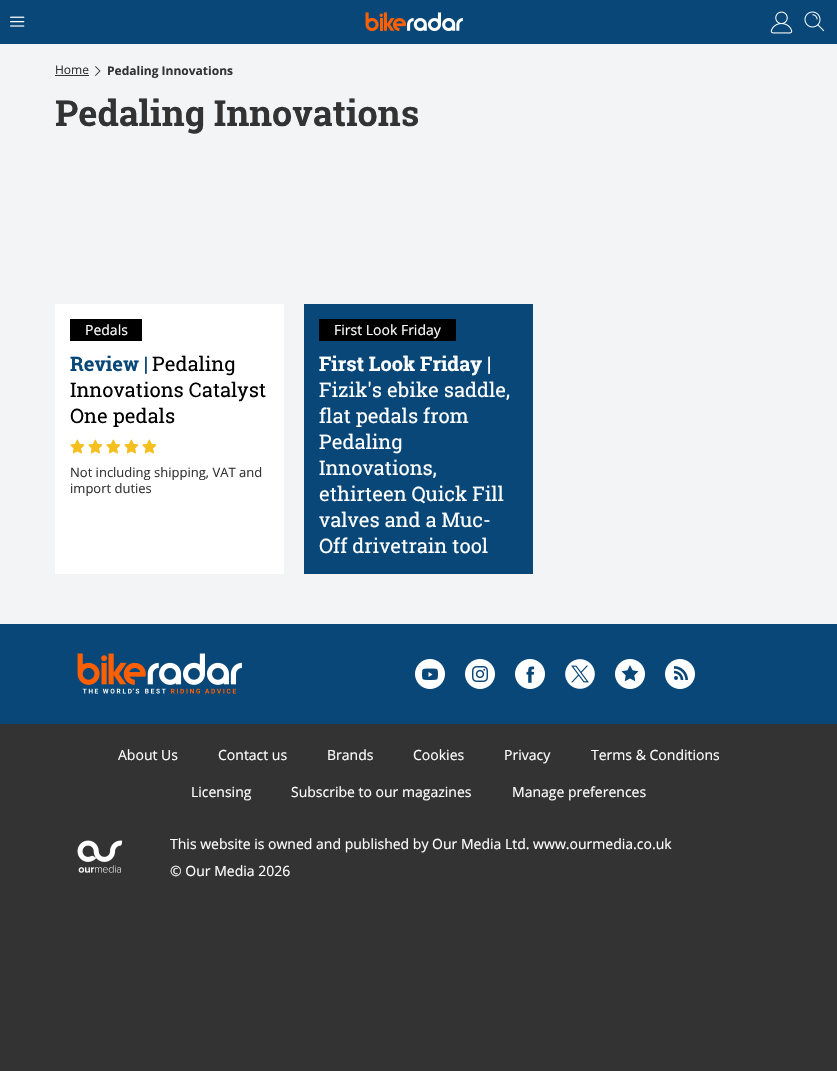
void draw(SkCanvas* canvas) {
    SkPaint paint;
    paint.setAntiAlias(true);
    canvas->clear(0xFFF3F4F5);
    paint.setColor(0xFF084777);
    canvas->drawRect(SkRect::MakeXYWH(0, 0, 837, 44), paint);
    canvas->drawImageRect(SkImages::DeferredFromEncodedData(SkData::MakeFromFileName("img1.png")), SkRect::MakeXYWH(10, 16, 15, 11), SkSamplingOptions());
    canvas->drawImageRect(SkImages::DeferredFromEncodedData(SkData::MakeFromFileName("img2.png")), SkRect::MakeXYWH(365, 12, 98, 20), SkSamplingOptions());
    canvas->drawImageRect(SkImages::DeferredFromEncodedData(SkData::MakeFromFileName("img3.png")), SkRect::MakeXYWH(770, 11, 23, 23), SkSamplingOptions());
    canvas->drawImageRect(SkImages::DeferredFromEncodedData(SkData::MakeFromFileName("img4.png")), SkRect::MakeXYWH(804, 11, 21, 21), SkSamplingOptions());
    SkFont font1(fontMgr->matchFamilyStyle("Open Sans", SkFontStyle::Normal()), 12);
    font1.setSubpixel(true);
    paint.setColor(0xFF333333);
    canvas->drawString("Home", 55, 74, font1, paint);
    canvas->drawRect(SkRect::MakeXYWH(55, 75, 34, 1), paint);
    canvas->drawImageRect(SkImages::DeferredFromEncodedData(SkData::MakeFromFileName("img5.png")), SkRect::MakeXYWH(95, 66, 6, 10), SkSamplingOptions());
    SkFont font2(fontMgr->matchFamilyStyle("Open Sans", SkFontStyle::Bold()), 12);
    font2.setSubpixel(true);
    canvas->drawString("Pedaling Innovations", 107, 75, font2, paint);
    SkFont font3(fontMgr->matchFamilyStyle("Roboto Slab", SkFontStyle::Bold()), 36);
    font3.setSubpixel(true);
    canvas->drawString("Pedaling Innovations", 55, 126, font3, paint);
    paint.setColor(0xFFFFFFFF);
    canvas->drawRect(SkRect::MakeXYWH(55, 304, 229, 270), paint);
    paint.setColor(0xFF000000);
    canvas->drawRect(SkRect::MakeXYWH(70, 319, 72, 22), paint);
    SkFont font4(fontMgr->matchFamilyStyle("Open Sans", SkFontStyle::Normal()), 14);
    font4.setSubpixel(true);
    paint.setColor(0xFFFFFFFF);
    canvas->drawString("Pedals", 85, 335, font4, paint);
    SkFont font5(fontMgr->matchFamilyStyle("Roboto Slab", SkFontStyle::Bold()), 20);
    font5.setSubpixel(true);
    paint.setColor(0xFF084777);
    canvas->drawString("Review |", 70, 371, font5, paint);
    SkFont font6(fontMgr->matchFamilyStyle("Roboto Slab", SkFontStyle::Normal()), 20);
    font6.setSubpixel(true);
    paint.setColor(0xFF000000);
    canvas->drawString("Pedaling", 152, 371, font6, paint);
    canvas->drawString("Innovations Catalyst", 70, 397, font6, paint);
    canvas->drawString("One pedals", 70, 423, font6, paint);
    canvas->drawImageRect(SkImages::DeferredFromEncodedData(SkData::MakeFromFileName("img6.png")), SkRect::MakeXYWH(70, 439, 15, 15), SkSamplingOptions());
    canvas->drawImageRect(SkImages::DeferredFromEncodedData(SkData::MakeFromFileName("img6.png")), SkRect::MakeXYWH(88, 439, 15, 15), SkSamplingOptions());
    canvas->drawImageRect(SkImages::DeferredFromEncodedData(SkData::MakeFromFileName("img6.png")), SkRect::MakeXYWH(106, 439, 15, 15), SkSamplingOptions());
    canvas->drawImageRect(SkImages::DeferredFromEncodedData(SkData::MakeFromFileName("img6.png")), SkRect::MakeXYWH(124, 439, 15, 15), SkSamplingOptions());
    canvas->drawImageRect(SkImages::DeferredFromEncodedData(SkData::MakeFromFileName("img6.png")), SkRect::MakeXYWH(142, 439, 15, 15), SkSamplingOptions());
    SkFont font7(fontMgr->matchFamilyStyle("Open Sans", SkFontStyle::Normal()), 13);
    font7.setSubpixel(true);
    paint.setColor(0xFF333333);
    canvas->drawString("Not including shipping, VAT and", 70, 477, font7, paint);
    canvas->drawString("import duties", 70, 493, font7, paint);
    paint.setColor(0xFF084777);
    canvas->drawRect(SkRect::MakeXYWH(304, 304, 229, 270), paint);
    paint.setColor(0xFF000000);
    canvas->drawRect(SkRect::MakeXYWH(319, 319, 137, 22), paint);
    paint.setColor(0xFFFFFFFF);
    canvas->drawString("First Look Friday", 334, 335, font4, paint);
    canvas->drawString("First Look Friday |", 319, 371, font5, paint);
    canvas->drawString("Fizik's ebike saddle,", 319, 397, font6, paint);
    canvas->drawString("flat pedals from", 319, 423, font6, paint);
    canvas->drawString("Pedaling", 319, 449, font6, paint);
    canvas->drawString("Innovations,", 319, 475, font6, paint);
    canvas->drawString("ethirteen Quick Fill", 319, 501, font6, paint);
    canvas->drawString("valves and a Muc-", 319, 527, font6, paint);
    canvas->drawString("Off drivetrain tool", 319, 553, font6, paint);
    paint.setColor(0xFF084777);
    canvas->drawRect(SkRect::MakeXYWH(0, 624, 837, 100), paint);
    canvas->drawImageRect(SkImages::DeferredFromEncodedData(SkData::MakeFromFileName("img7.png")), SkRect::MakeXYWH(77, 653, 165, 41), SkSamplingOptions());
    canvas->drawImageRect(SkImages::DeferredFromEncodedData(SkData::MakeFromFileName("img8.png")), SkRect::MakeXYWH(415, 659, 30, 30), SkSamplingOptions());
    canvas->drawImageRect(SkImages::DeferredFromEncodedData(SkData::MakeFromFileName("img9.png")), SkRect::MakeXYWH(465, 659, 30, 30), SkSamplingOptions());
    canvas->drawImageRect(SkImages::DeferredFromEncodedData(SkData::MakeFromFileName("img10.png")), SkRect::MakeXYWH(515, 659, 30, 30), SkSamplingOptions());
    canvas->drawImageRect(SkImages::DeferredFromEncodedData(SkData::MakeFromFileName("img11.png")), SkRect::MakeXYWH(565, 659, 30, 30), SkSamplingOptions());
    canvas->drawImageRect(SkImages::DeferredFromEncodedData(SkData::MakeFromFileName("img12.png")), SkRect::MakeXYWH(615, 659, 30, 30), SkSamplingOptions());
    canvas->drawImageRect(SkImages::DeferredFromEncodedData(SkData::MakeFromFileName("img13.png")), SkRect::MakeXYWH(665, 659, 30, 30), SkSamplingOptions());
    paint.setColor(0xFF333333);
    canvas->drawRect(SkRect::MakeXYWH(0, 724, 837, 347), paint);
    paint.setColor(0xFFFFFFFF);
    canvas->drawString("About Us", 118, 760, font4, paint);
    canvas->drawString("Contact us", 218, 760, font4, paint);
    canvas->drawString("Brands", 327, 760, font4, paint);
    canvas->drawString("Cookies", 413, 760, font4, paint);
    canvas->drawString("Privacy", 504, 760, font4, paint);
    canvas->drawString("Terms & Conditions", 591, 760, font4, paint);
    canvas->drawString("Licensing", 191, 797, font4, paint);
    canvas->drawString("Subscribe to our magazines", 291, 797, font4, paint);
    canvas->drawString("Manage preferences", 512, 797, font4, paint);
    canvas->drawImageRect(SkImages::DeferredFromEncodedData(SkData::MakeFromFileName("img14.png")), SkRect::MakeXYWH(77, 840, 46, 33), SkSamplingOptions());
    canvas->drawString("This website is owned and published by Our Media Ltd. www.ourmedia.co.uk", 170, 849, font4, paint);
    canvas->drawString("© Our Media 2026", 170, 876, font4, paint);
}
